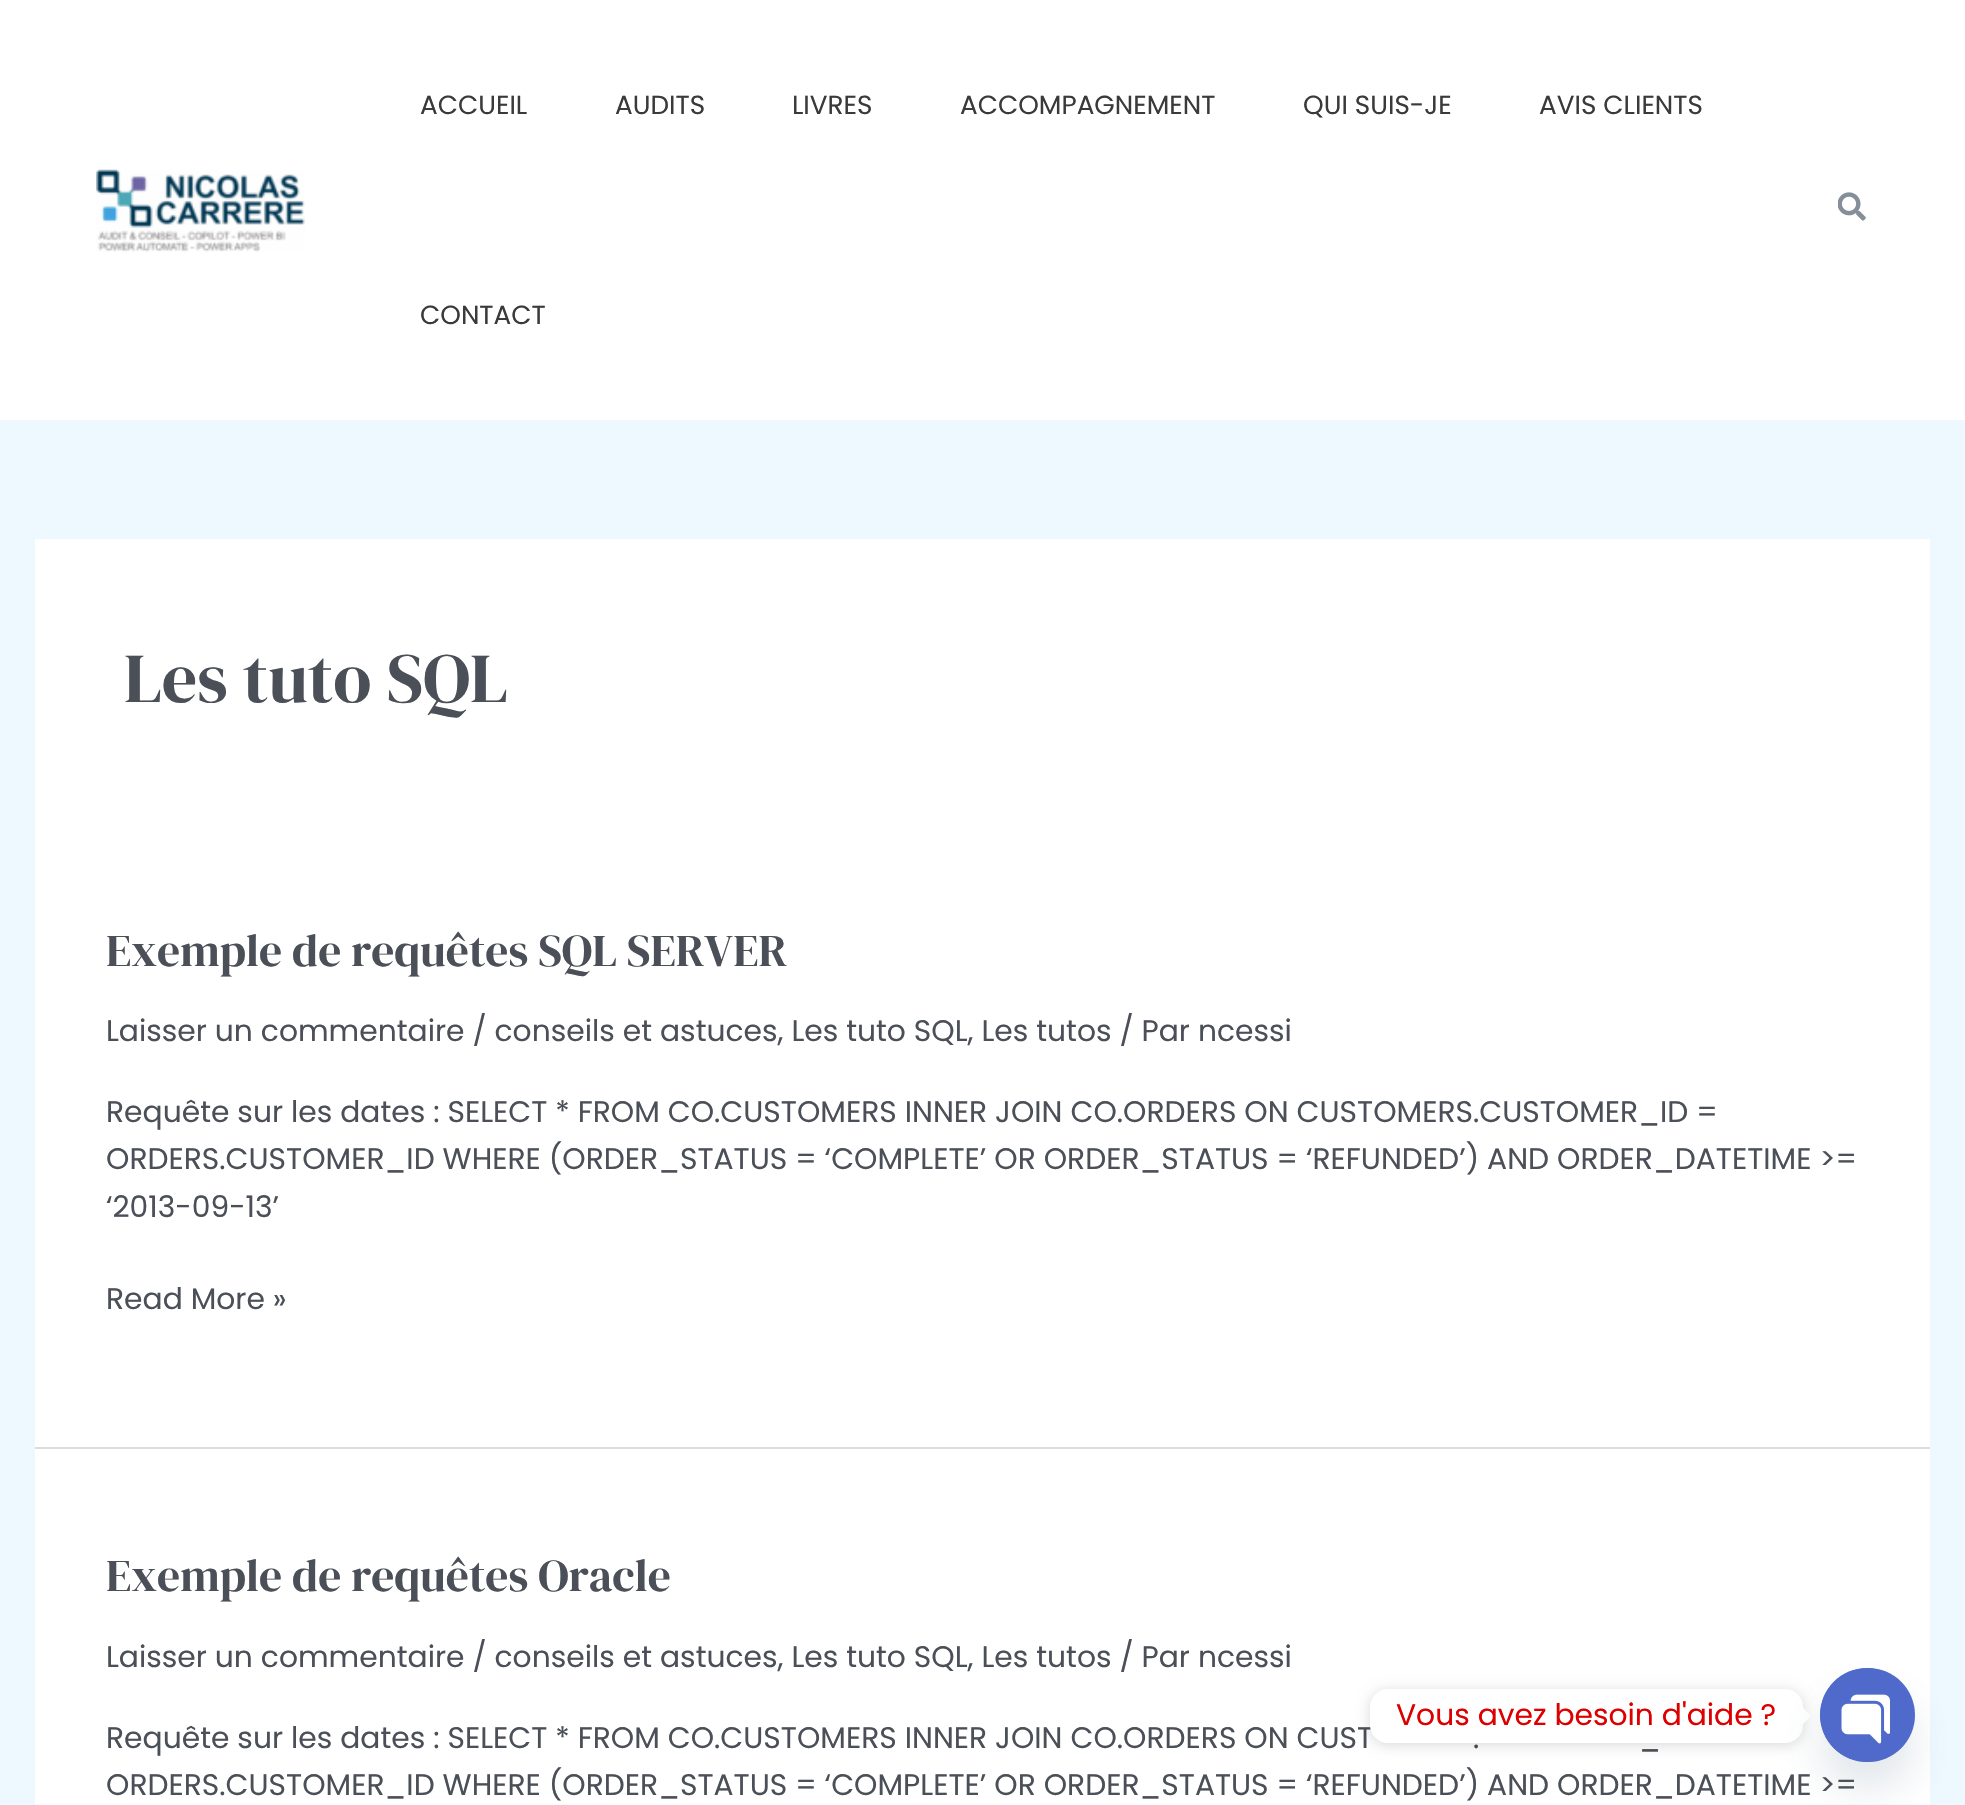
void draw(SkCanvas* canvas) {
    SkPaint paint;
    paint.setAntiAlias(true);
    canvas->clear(0xFFEEF8FF);
    paint.setColor(0xFFFFFFFF);
    canvas->drawRect(SkRect::MakeXYWH(0, 0, 1965, 420), paint);
    canvas->drawImageRect(SkImages::DeferredFromEncodedData(SkData::MakeFromFileName("img1.png")), SkRect::MakeXYWH(96, 169, 209, 83), SkSamplingOptions());
    SkFont font1(fontMgr->matchFamilyStyle("Poppins", SkFontStyle::Normal()), 26.25f);
    font1.setSubpixel(true);
    paint.setColor(0xFF3A3A3A);
    canvas->drawString("ACCUEIL", 420, 114, font1, paint);
    canvas->drawString("AUDITS", 615, 114, font1, paint);
    canvas->drawString("LIVRES", 792, 114, font1, paint);
    canvas->drawString("ACCOMPAGNEMENT", 960, 114, font1, paint);
    canvas->drawString("QUI SUIS-JE", 1303, 114, font1, paint);
    canvas->drawString("AVIS CLIENTS", 1539, 114, font1, paint);
    canvas->drawString("CONTACT", 420, 324, font1, paint);
    canvas->drawImageRect(SkImages::DeferredFromEncodedData(SkData::MakeFromFileName("img2.png")), SkRect::MakeXYWH(1838, 192, 28, 29), SkSamplingOptions());
    paint.setColor(0xFFFFFFFF);
    canvas->drawRect(SkRect::MakeXYWH(35, 539, 1895, 908), paint);
    SkFont font2(fontMgr->matchFamilyStyle("DM Serif Display", SkFontStyle::Normal()), 70);
    font2.setSubpixel(true);
    paint.setColor(0xFF4B4F58);
    canvas->drawString("Les tuto SQL", 124, 702, font2, paint);
    paint.setColor(0xFFDDDDDD);
    canvas->drawRect(SkRect::MakeXYWH(35, 1447, 1895, 2), paint);
    SkFont font3(fontMgr->matchFamilyStyle("DM Serif Display", SkFontStyle::Normal()), 45.5f);
    font3.setSubpixel(true);
    paint.setColor(0xFF4B4F58);
    canvas->drawString("Exemple de requêtes SQL SERVER", 106, 966, font3, paint);
    SkFont font4(fontMgr->matchFamilyStyle("Poppins", SkFontStyle::Normal()), 29.75f);
    font4.setSubpixel(true);
    canvas->drawString("Laisser un commentaire / conseils et astuces, Les tuto SQL, Les tutos / Par ncessi", 106, 1041, font4, paint);
    canvas->drawString("Requête sur les dates : SELECT * FROM CO.CUSTOMERS INNER JOIN CO.ORDERS ON CUSTOMERS.CUSTOMER_ID =", 106, 1122, font4, paint);
    canvas->drawString("ORDERS.CUSTOMER_ID WHERE (ORDER_STATUS = ‘COMPLETE’ OR ORDER_STATUS = ‘REFUNDED’) AND ORDER_DATETIME >=", 106, 1169, font4, paint);
    canvas->drawString("‘2013-09-13’", 106, 1217, font4, paint);
    canvas->drawString("Read More »", 106, 1309, font4, paint);
    paint.setColor(0xFFFFFFFF);
    canvas->drawRect(SkRect::MakeXYWH(35, 1449, 1895, 356), paint);
    paint.setColor(0xFF4B4F58);
    canvas->drawString("Exemple de requêtes Oracle", 106, 1591, font3, paint);
    canvas->drawString("Laisser un commentaire / conseils et astuces, Les tuto SQL, Les tutos / Par ncessi", 106, 1667, font4, paint);
    canvas->drawString("Requête sur les dates : SELECT * FROM CO.CUSTOMERS INNER JOIN CO.ORDERS ON CUST", 106, 1748, font4, paint);
    canvas->drawString(".", 1473, 1748, font4, paint);
    canvas->drawString("_", 1639, 1748, font4, paint);
    canvas->drawString("ORDERS.CUSTOMER_ID WHERE (ORDER_STATUS = ‘COMPLETE’ OR ORDER_STATUS = ‘REFUNDED’) AND ORDER_DATETIME >=", 106, 1795, font4, paint);
    paint.setColor(0x26000000);
    paint.setMaskFilter(SkMaskFilter::MakeBlur(kNormal_SkBlurStyle, 7));
    canvas->drawRoundRect(SkRect::MakeXYWH(1370, 1691, 433, 54), 18, 18, paint);
    paint.setMaskFilter(nullptr);
    paint.setColor(0xFFFFFFFF);
    canvas->drawRoundRect(SkRect::MakeXYWH(1370, 1689, 433, 54), 18, 18, paint);
    paint.setColor(0xFFDD0000);
    canvas->drawString("Vous avez besoin d'aide ?", 1396, 1725, font4, paint);
    paint.setColor(0xFFFFFFFF);
    canvas->drawPath(SkPathBuilder().moveTo(1802.5f, 1724.5f).lineTo(1802.5f, 1707).lineTo(1811, 1716).close().detach(), paint);
    paint.setColor(0x2949687E);
    paint.setMaskFilter(SkMaskFilter::MakeBlur(kNormal_SkBlurStyle, 21));
    canvas->drawRoundRect(SkRect::MakeXYWH(1820, 1696, 95, 94), 47, 47, paint);
    paint.setMaskFilter(nullptr);
    paint.setColor(0xFF4F6ACA);
    canvas->drawRoundRect(SkRect::MakeXYWH(1820, 1668, 95, 94), 47, 47, paint);
    canvas->drawImageRect(SkImages::DeferredFromEncodedData(SkData::MakeFromFileName("img3.png")), SkRect::MakeXYWH(1820, 1668, 70, 94), SkSamplingOptions());
}
